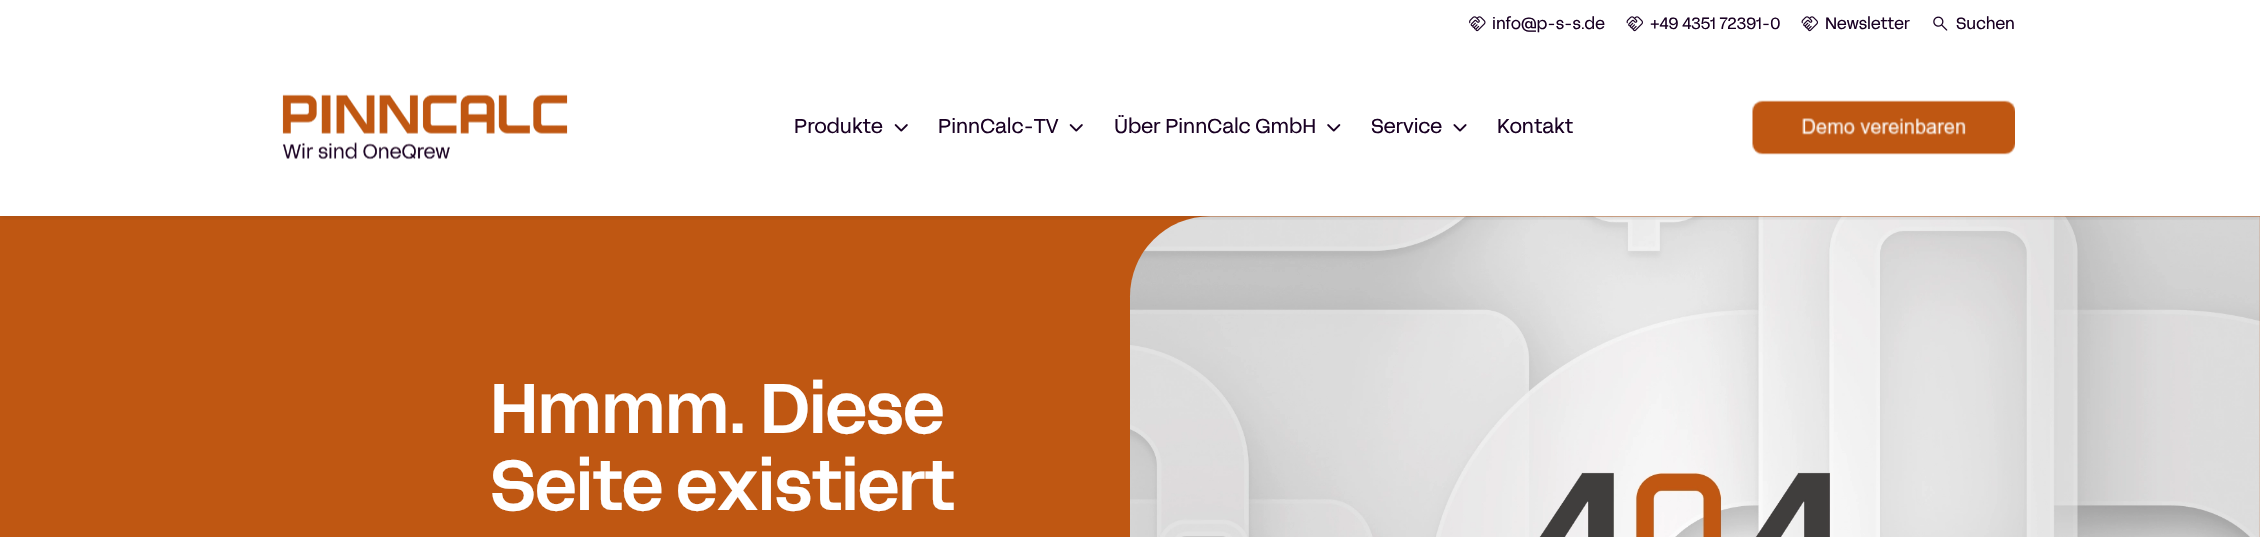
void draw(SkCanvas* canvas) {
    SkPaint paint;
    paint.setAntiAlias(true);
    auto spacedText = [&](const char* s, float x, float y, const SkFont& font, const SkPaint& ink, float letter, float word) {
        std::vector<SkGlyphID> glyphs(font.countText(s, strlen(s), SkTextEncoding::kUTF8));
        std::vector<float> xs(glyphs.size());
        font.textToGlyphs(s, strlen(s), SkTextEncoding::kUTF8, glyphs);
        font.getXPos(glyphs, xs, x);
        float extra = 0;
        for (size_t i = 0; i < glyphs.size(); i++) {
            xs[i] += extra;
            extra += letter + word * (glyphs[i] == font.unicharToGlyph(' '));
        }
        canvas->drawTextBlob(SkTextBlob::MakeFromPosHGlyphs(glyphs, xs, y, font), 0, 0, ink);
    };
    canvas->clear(0xFFFFFFFF);
    paint.setColor(0xFFBF5712);
    canvas->drawRect(SkRect::MakeXYWH(0, 216, 2260, 321), paint);
    canvas->drawImageRect(SkImages::DeferredFromEncodedData(SkData::MakeFromFileName("img9.png")), SkRect::MakeXYWH(1129, 216, 1131, 321), SkSamplingOptions());
    canvas->save();
    canvas->clipRect(SkRect::MakeXYWH(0, 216, 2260, 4));
    paint.setColor(0x1A000000);
    paint.setMaskFilter(SkMaskFilter::MakeBlur(kNormal_SkBlurStyle, 2.5f));
    canvas->drawRect(SkRect::MakeXYWH(0, 1, 2260, 217), paint);
    paint.setMaskFilter(nullptr);
    canvas->restore();
    canvas->drawImageRect(SkImages::DeferredFromEncodedData(SkData::MakeFromFileName("img1.png")), SkRect::MakeXYWH(1469, 16, 17, 16), SkSamplingOptions());
    SkFont font1(fontMgr->matchFamilyStyle("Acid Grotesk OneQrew", SkFontStyle::Normal()), 16.25f);
    font1.setSubpixel(true);
    paint.setColor(0xFF190023);
    canvas->drawString("info@p-s-s.de", 1492, 29, font1, paint);
    canvas->drawImageRect(SkImages::DeferredFromEncodedData(SkData::MakeFromFileName("img2.png")), SkRect::MakeXYWH(1626, 16, 17, 16), SkSamplingOptions());
    canvas->drawString("+49 4351 72391-0", 1650, 29, font1, paint);
    canvas->drawImageRect(SkImages::DeferredFromEncodedData(SkData::MakeFromFileName("img2.png")), SkRect::MakeXYWH(1801, 16, 17, 16), SkSamplingOptions());
    canvas->drawString("Newsletter", 1825, 29, font1, paint);
    canvas->drawImageRect(SkImages::DeferredFromEncodedData(SkData::MakeFromFileName("img3.png")), SkRect::MakeXYWH(1933, 16, 15, 15), SkSamplingOptions());
    canvas->drawString("Suchen", 1956, 29, font1, paint);
    canvas->drawImageRect(SkImages::DeferredFromEncodedData(SkData::MakeFromFileName("img4.png")), SkRect::MakeXYWH(282, 94, 286, 66), SkSamplingOptions());
    SkFont font2(fontMgr->matchFamilyStyle("Acid Grotesk OneQrew", SkFontStyle::Normal()), 20);
    font2.setSubpixel(true);
    canvas->drawString("Produkte", 794, 133, font2, paint);
    canvas->drawImageRect(SkImages::DeferredFromEncodedData(SkData::MakeFromFileName("img5.png")), SkRect::MakeXYWH(894, 124, 14, 8), SkSamplingOptions());
    canvas->drawString("PinnCalc-TV", 938, 133, font2, paint);
    canvas->drawImageRect(SkImages::DeferredFromEncodedData(SkData::MakeFromFileName("img5.png")), SkRect::MakeXYWH(1069, 124, 14, 8), SkSamplingOptions());
    canvas->drawString("Über PinnCalc GmbH", 1114, 133, font2, paint);
    canvas->drawImageRect(SkImages::DeferredFromEncodedData(SkData::MakeFromFileName("img6.png")), SkRect::MakeXYWH(1327, 124, 14, 8), SkSamplingOptions());
    canvas->drawString("Service", 1371, 133, font2, paint);
    canvas->drawImageRect(SkImages::DeferredFromEncodedData(SkData::MakeFromFileName("img7.png")), SkRect::MakeXYWH(1453, 124, 14, 8), SkSamplingOptions());
    canvas->drawString("Kontakt", 1497, 133, font2, paint);
    canvas->drawImageRect(SkImages::DeferredFromEncodedData(SkData::MakeFromFileName("img8.png")), SkRect::MakeXYWH(1752, 100, 263, 55), SkSamplingOptions());
    SkFont font3(fontMgr->matchFamilyStyle("Acid Grotesk OneQrew", SkFontStyle(500, SkFontStyle::kNormal_Width, SkFontStyle::kUpright_Slant)), 70);
    font3.setSubpixel(true);
    paint.setColor(0xFFFFFFFF);
    spacedText("Hmmm. Diese", 490, 433, font3, paint, -0.75f, 0);
    spacedText("Seite existiert", 490, 510, font3, paint, -0.75f, 0);
}
